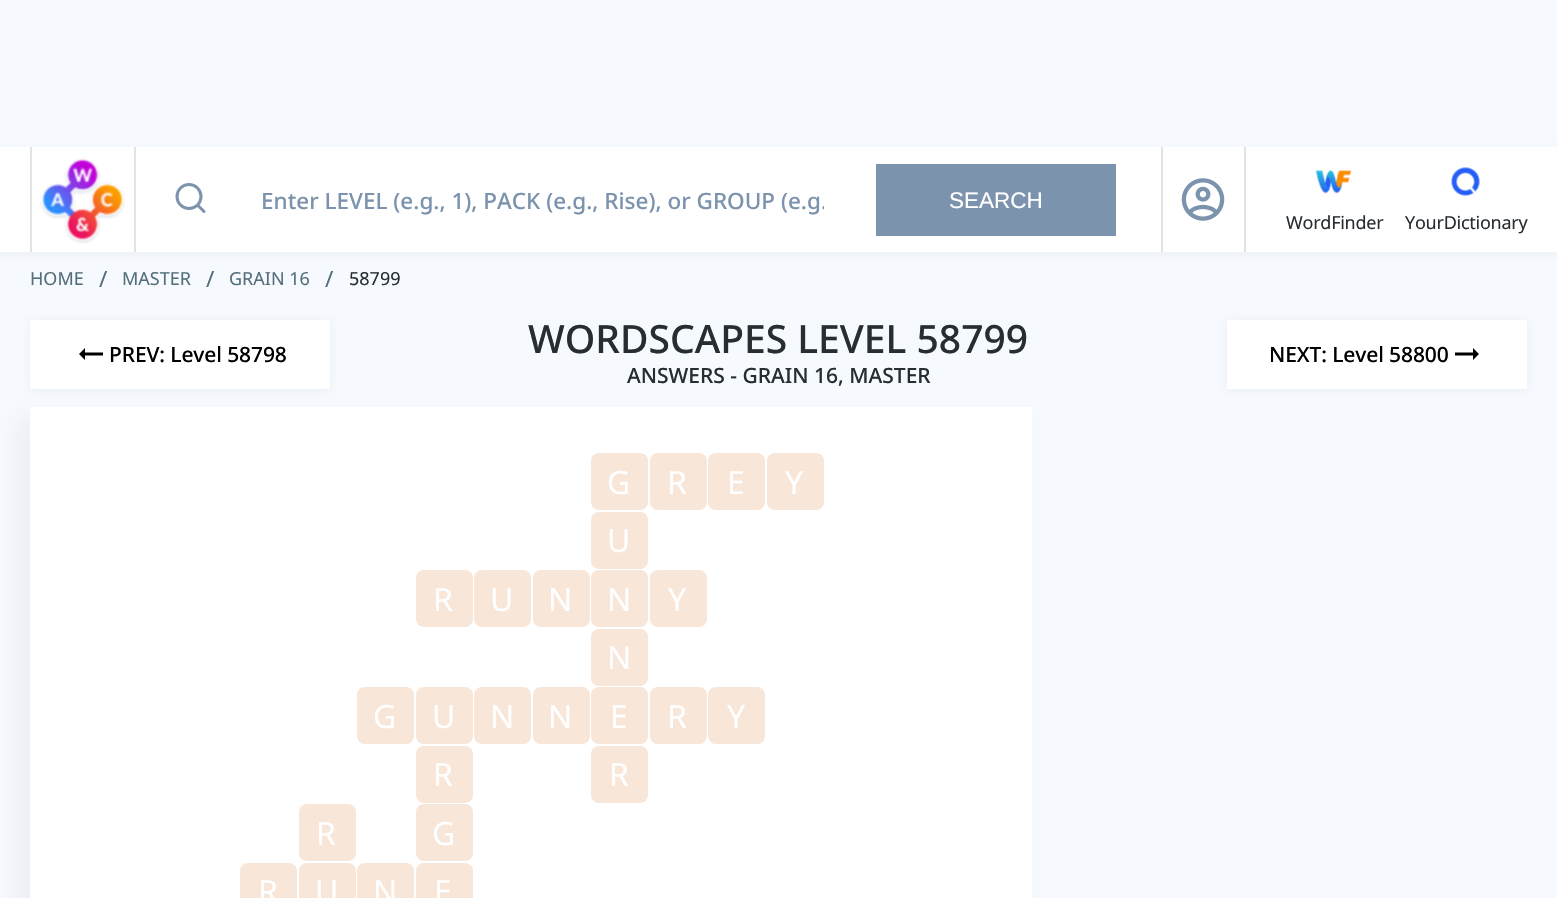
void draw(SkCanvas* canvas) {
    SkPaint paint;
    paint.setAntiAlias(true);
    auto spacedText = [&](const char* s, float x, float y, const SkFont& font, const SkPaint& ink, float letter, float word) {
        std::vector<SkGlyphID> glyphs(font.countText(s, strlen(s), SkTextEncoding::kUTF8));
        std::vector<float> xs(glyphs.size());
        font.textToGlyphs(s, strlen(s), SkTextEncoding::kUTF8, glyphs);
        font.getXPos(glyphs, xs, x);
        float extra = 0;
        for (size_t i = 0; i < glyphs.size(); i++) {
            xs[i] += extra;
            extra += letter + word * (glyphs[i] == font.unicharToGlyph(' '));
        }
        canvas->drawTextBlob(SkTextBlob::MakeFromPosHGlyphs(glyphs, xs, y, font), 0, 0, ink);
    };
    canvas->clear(0xFFF6F9FD);
    paint.setColor(0x1A7C93AD);
    paint.setMaskFilter(SkMaskFilter::MakeBlur(kNormal_SkBlurStyle, 4));
    canvas->drawRect(SkRect::MakeXYWH(0, 149, 1557, 105), paint);
    paint.setMaskFilter(nullptr);
    paint.setColor(0xFFF6F9FD);
    canvas->drawRect(SkRect::MakeXYWH(3, 146, 1551, 1), paint);
    paint.setColor(0xFFFFFFFF);
    canvas->drawRect(SkRect::MakeXYWH(0, 147, 1557, 105), paint);
    paint.setColor(0xFFDEE5E9);
    canvas->drawRect(SkRect::MakeXYWH(134, 147, 2, 105), paint);
    canvas->drawRect(SkRect::MakeXYWH(30, 147, 2, 105), paint);
    canvas->drawImageRect(SkImages::DeferredFromEncodedData(SkData::MakeFromFileName("img1.png")), SkRect::MakeXYWH(40, 158, 85, 86), SkSamplingOptions());
    paint.setStyle(SkPaint::kStroke_Style);
    paint.setStrokeWidth(3);
    paint.setColor(0xFF7C93AD);
    canvas->drawCircle(189, 196.5f, 12, paint);
    paint.setStrokeCap(SkPaint::kRound_Cap);
    paint.setStrokeJoin(SkPaint::kRound_Join);
    canvas->drawPath(SkPathBuilder().moveTo(204, 211.5f).lineTo(198, 205.5f).detach(), paint);
    canvas->save();
    canvas->clipRect(SkRect::MakeXYWH(246, 186, 578, 30));
    SkFont font1(fontMgr->matchFamilyStyle("Noto Sans", SkFontStyle(500, SkFontStyle::kNormal_Width, SkFontStyle::kUpright_Slant)), 22.5f);
    font1.setSubpixel(true);
    paint.setStyle(SkPaint::kFill_Style);
    canvas->drawString("Enter LEVEL (e.g., 1), PACK (e.g., Rise), or GROUP (e.g.", 261, 209, font1, paint);
    canvas->restore();
    canvas->drawRect(SkRect::MakeXYWH(876, 164, 240, 72), paint);
    SkFont font2(fontMgr->matchFamilyStyle("Liberation Sans", SkFontStyle::Normal()), 22.5f);
    font2.setSubpixel(true);
    paint.setColor(0xFFFFFFFF);
    canvas->drawString("SEARCH", 949, 208, font2, paint);
    paint.setColor(0xFFDEE5E9);
    canvas->drawRect(SkRect::MakeXYWH(1161, 147, 2, 105), paint);
    canvas->drawImageRect(SkImages::DeferredFromEncodedData(SkData::MakeFromFileName("img2.png")), SkRect::MakeXYWH(1181, 178, 44, 43), SkSamplingOptions());
    canvas->drawRect(SkRect::MakeXYWH(1244, 147, 2, 105), paint);
    canvas->drawImageRect(SkImages::DeferredFromEncodedData(SkData::MakeFromFileName("img3.png")), SkRect::MakeXYWH(1315, 170, 37, 24), SkSamplingOptions());
    SkFont font3(fontMgr->matchFamilyStyle("Noto Sans", SkFontStyle::Normal()), 18);
    font3.setSubpixel(true);
    paint.setColor(0xFF282D32);
    spacedText("WordFinder", 1286, 229, font3, paint, -0.25f, 0);
    canvas->drawImageRect(SkImages::DeferredFromEncodedData(SkData::MakeFromFileName("img4.png")), SkRect::MakeXYWH(1451, 167, 29, 29), SkSamplingOptions());
    spacedText("YourDictionary", 1405, 229, font3, paint, -0.25f, 0);
    paint.setColor(0xFF546E7A);
    canvas->drawString("HOME", 30, 285, font3, paint);
    SkFont font4(fontMgr->matchFamilyStyle("Noto Sans", SkFontStyle::Normal()), 22.5f);
    font4.setSubpixel(true);
    canvas->drawString("/", 99, 287, font4, paint);
    canvas->drawString("MASTER", 122, 285, font3, paint);
    canvas->drawString("/", 206, 287, font4, paint);
    canvas->drawString("GRAIN 16", 229, 285, font3, paint);
    canvas->drawString("/", 325, 287, font4, paint);
    paint.setColor(0xFF282D32);
    canvas->drawString("58799", 349, 285, font3, paint);
    paint.setColor(0x1A7C93AD);
    paint.setMaskFilter(SkMaskFilter::MakeBlur(kNormal_SkBlurStyle, 4.5f));
    canvas->drawRect(SkRect::MakeXYWH(30, 321, 300, 69), paint);
    paint.setMaskFilter(nullptr);
    paint.setColor(0xFFFFFFFF);
    canvas->drawRect(SkRect::MakeXYWH(30, 320, 300, 69), paint);
    paint.setColor(0xFF000000);
    canvas->drawPath(SkPathBuilder().moveTo(85, 355.5f).lineTo(103, 355.5f).lineTo(103, 352.5f).lineTo(85, 352.5f).lineTo(85, 348).lineTo(79, 354).lineTo(85, 360).close().detach(), paint);
    SkFont font5(fontMgr->matchFamilyStyle("Noto Sans", SkFontStyle(500, SkFontStyle::kNormal_Width, SkFontStyle::kUpright_Slant)), 21);
    font5.setSubpixel(true);
    spacedText("PREV: Level 58798", 109, 362, font5, paint, -0.1f, 0);
    SkFont font6(fontMgr->matchFamilyStyle("Noto Sans", SkFontStyle(500, SkFontStyle::kNormal_Width, SkFontStyle::kUpright_Slant)), 39);
    font6.setSubpixel(true);
    paint.setColor(0xFF282D32);
    canvas->drawString("WORDSCAPES LEVEL 58799", 528, 353, font6, paint);
    canvas->drawString("ANSWERS - GRAIN 16, MASTER", 627, 383, font5, paint);
    paint.setColor(0x1A7C93AD);
    paint.setMaskFilter(SkMaskFilter::MakeBlur(kNormal_SkBlurStyle, 4.5f));
    canvas->drawRect(SkRect::MakeXYWH(1227, 321, 300, 69), paint);
    paint.setMaskFilter(nullptr);
    paint.setColor(0xFFFFFFFF);
    canvas->drawRect(SkRect::MakeXYWH(1227, 320, 300, 69), paint);
    paint.setColor(0xFF000000);
    spacedText("NEXT: Level 58800", 1269, 362, font5, paint, -0.1f, 0);
    canvas->drawPath(SkPathBuilder().moveTo(1473, 352.5f).lineTo(1455, 352.5f).lineTo(1455, 355.5f).lineTo(1473, 355.5f).lineTo(1473, 360).lineTo(1479, 354).lineTo(1473, 348).close().detach(), paint);
    paint.setColor(0x1A7C93AD);
    paint.setMaskFilter(SkMaskFilter::MakeBlur(kNormal_SkBlurStyle, 12));
    canvas->drawRect(SkRect::MakeXYWH(18, 419, 1002, 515), paint);
    paint.setMaskFilter(nullptr);
    paint.setColor(0xFFFFFFFF);
    canvas->drawRect(SkRect::MakeXYWH(30, 407, 1002, 491), paint);
    paint.setColor(0xFFF8E6D9);
    canvas->drawRoundRect(SkRect::MakeXYWH(591, 453, 57, 57), 8, 8, paint);
    SkFont font7(fontMgr->matchFamilyStyle("Noto Sans", SkFontStyle::Normal()), 32);
    font7.setSubpixel(true);
    paint.setColor(0xFFFFFFFF);
    canvas->drawString("G", 607, 494, font7, paint);
    paint.setColor(0xFFF8E6D9);
    canvas->drawRoundRect(SkRect::MakeXYWH(650, 453, 57, 57), 8, 8, paint);
    paint.setColor(0xFFFFFFFF);
    canvas->drawString("R", 667, 494, font7, paint);
    paint.setColor(0xFFF8E6D9);
    canvas->drawRoundRect(SkRect::MakeXYWH(708, 453, 57, 57), 8, 8, paint);
    paint.setColor(0xFFFFFFFF);
    canvas->drawString("E", 727, 494, font7, paint);
    paint.setColor(0xFFF8E6D9);
    canvas->drawRoundRect(SkRect::MakeXYWH(767, 453, 57, 57), 8, 8, paint);
    paint.setColor(0xFFFFFFFF);
    canvas->drawString("Y", 785, 494, font7, paint);
    paint.setColor(0xFFF8E6D9);
    canvas->drawRoundRect(SkRect::MakeXYWH(591, 512, 57, 57), 8, 8, paint);
    paint.setColor(0xFFFFFFFF);
    canvas->drawString("U", 607, 552, font7, paint);
    paint.setColor(0xFFF8E6D9);
    canvas->drawRoundRect(SkRect::MakeXYWH(416, 570, 57, 57), 8, 8, paint);
    paint.setColor(0xFFFFFFFF);
    canvas->drawString("R", 433, 611, font7, paint);
    paint.setColor(0xFFF8E6D9);
    canvas->drawRoundRect(SkRect::MakeXYWH(474, 570, 57, 57), 8, 8, paint);
    paint.setColor(0xFFFFFFFF);
    canvas->drawString("U", 490, 611, font7, paint);
    paint.setColor(0xFFF8E6D9);
    canvas->drawRoundRect(SkRect::MakeXYWH(533, 570, 57, 57), 8, 8, paint);
    paint.setColor(0xFFFFFFFF);
    canvas->drawString("N", 548, 611, font7, paint);
    paint.setColor(0xFFF8E6D9);
    canvas->drawRoundRect(SkRect::MakeXYWH(591, 570, 57, 57), 8, 8, paint);
    paint.setColor(0xFFFFFFFF);
    canvas->drawString("N", 607, 611, font7, paint);
    paint.setColor(0xFFF8E6D9);
    canvas->drawRoundRect(SkRect::MakeXYWH(650, 570, 57, 57), 8, 8, paint);
    paint.setColor(0xFFFFFFFF);
    canvas->drawString("Y", 668, 611, font7, paint);
    paint.setColor(0xFFF8E6D9);
    canvas->drawRoundRect(SkRect::MakeXYWH(591, 629, 57, 57), 8, 8, paint);
    paint.setColor(0xFFFFFFFF);
    canvas->drawString("N", 607, 669, font7, paint);
    paint.setColor(0xFFF8E6D9);
    canvas->drawRoundRect(SkRect::MakeXYWH(357, 687, 57, 57), 8, 8, paint);
    paint.setColor(0xFFFFFFFF);
    canvas->drawString("G", 373, 728, font7, paint);
    paint.setColor(0xFFF8E6D9);
    canvas->drawRoundRect(SkRect::MakeXYWH(416, 687, 57, 57), 8, 8, paint);
    paint.setColor(0xFFFFFFFF);
    canvas->drawString("U", 432, 728, font7, paint);
    paint.setColor(0xFFF8E6D9);
    canvas->drawRoundRect(SkRect::MakeXYWH(474, 687, 57, 57), 8, 8, paint);
    paint.setColor(0xFFFFFFFF);
    canvas->drawString("N", 490, 728, font7, paint);
    paint.setColor(0xFFF8E6D9);
    canvas->drawRoundRect(SkRect::MakeXYWH(533, 687, 57, 57), 8, 8, paint);
    paint.setColor(0xFFFFFFFF);
    canvas->drawString("N", 548, 728, font7, paint);
    paint.setColor(0xFFF8E6D9);
    canvas->drawRoundRect(SkRect::MakeXYWH(591, 687, 57, 57), 8, 8, paint);
    paint.setColor(0xFFFFFFFF);
    canvas->drawString("E", 610, 728, font7, paint);
    paint.setColor(0xFFF8E6D9);
    canvas->drawRoundRect(SkRect::MakeXYWH(650, 687, 57, 57), 8, 8, paint);
    paint.setColor(0xFFFFFFFF);
    canvas->drawString("R", 667, 728, font7, paint);
    paint.setColor(0xFFF8E6D9);
    canvas->drawRoundRect(SkRect::MakeXYWH(708, 687, 57, 57), 8, 8, paint);
    paint.setColor(0xFFFFFFFF);
    canvas->drawString("Y", 727, 728, font7, paint);
    paint.setColor(0xFFF8E6D9);
    canvas->drawRoundRect(SkRect::MakeXYWH(416, 746, 57, 57), 8, 8, paint);
    paint.setColor(0xFFFFFFFF);
    canvas->drawString("R", 433, 786, font7, paint);
    paint.setColor(0xFFF8E6D9);
    canvas->drawRoundRect(SkRect::MakeXYWH(591, 746, 57, 57), 8, 8, paint);
    paint.setColor(0xFFFFFFFF);
    canvas->drawString("R", 609, 786, font7, paint);
    paint.setColor(0xFFF8E6D9);
    canvas->drawRoundRect(SkRect::MakeXYWH(299, 804, 57, 57), 8, 8, paint);
    paint.setColor(0xFFFFFFFF);
    canvas->drawString("R", 316, 845, font7, paint);
    paint.setColor(0xFFF8E6D9);
    canvas->drawRoundRect(SkRect::MakeXYWH(416, 804, 57, 57), 8, 8, paint);
    paint.setColor(0xFFFFFFFF);
    canvas->drawString("G", 432, 845, font7, paint);
    paint.setColor(0xFFF8E6D9);
    canvas->drawRoundRect(SkRect::MakeXYWH(240, 863, 57, 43), 8, 8, paint);
    paint.setColor(0xFFFFFFFF);
    canvas->drawString("R", 258, 903, font7, paint);
    paint.setColor(0xFFF8E6D9);
    canvas->drawRoundRect(SkRect::MakeXYWH(299, 863, 57, 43), 8, 8, paint);
    paint.setColor(0xFFFFFFFF);
    canvas->drawString("U", 315, 903, font7, paint);
    paint.setColor(0xFFF8E6D9);
    canvas->drawRoundRect(SkRect::MakeXYWH(357, 863, 57, 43), 8, 8, paint);
    paint.setColor(0xFFFFFFFF);
    canvas->drawString("N", 373, 903, font7, paint);
    paint.setColor(0xFFF8E6D9);
    canvas->drawRoundRect(SkRect::MakeXYWH(416, 863, 57, 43), 8, 8, paint);
    paint.setColor(0xFFFFFFFF);
    canvas->drawString("E", 434, 903, font7, paint);
}
